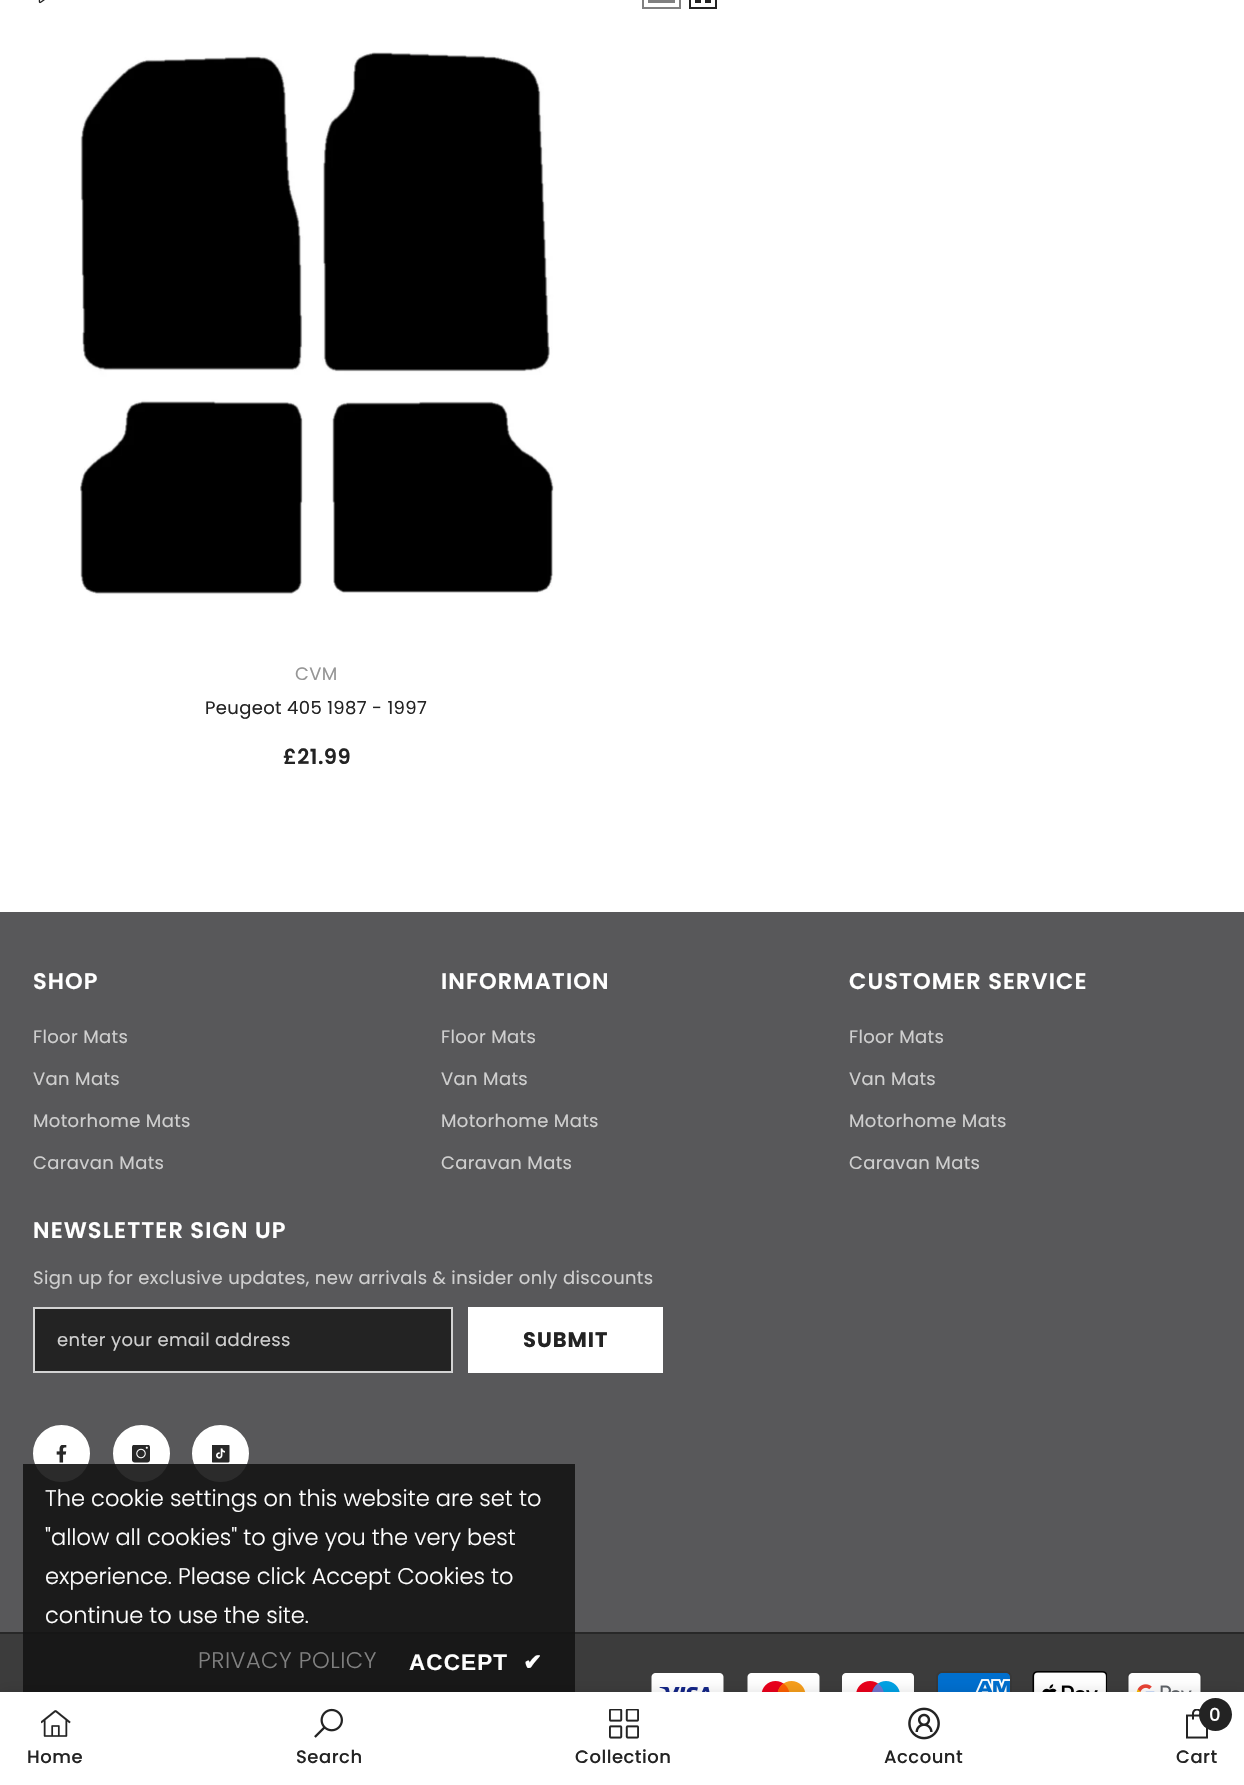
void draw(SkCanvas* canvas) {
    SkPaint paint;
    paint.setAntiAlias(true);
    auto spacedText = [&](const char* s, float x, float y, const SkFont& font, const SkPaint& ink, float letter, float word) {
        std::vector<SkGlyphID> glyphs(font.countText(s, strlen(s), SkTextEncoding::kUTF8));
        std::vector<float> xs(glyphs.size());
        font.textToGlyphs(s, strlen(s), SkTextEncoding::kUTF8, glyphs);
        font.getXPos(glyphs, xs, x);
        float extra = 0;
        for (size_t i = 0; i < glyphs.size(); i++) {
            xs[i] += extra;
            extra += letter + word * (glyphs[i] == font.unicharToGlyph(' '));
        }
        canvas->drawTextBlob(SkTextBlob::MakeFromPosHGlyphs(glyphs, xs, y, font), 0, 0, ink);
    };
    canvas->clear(0xFFFFFFFF);
    canvas->drawImageRect(SkImages::DeferredFromEncodedData(SkData::MakeFromFileName("img1.png")), SkRect::MakeXYWH(38, 0, 7, 4), SkSamplingOptions());
    paint.setStyle(SkPaint::kStroke_Style);
    paint.setStrokeWidth(2);
    paint.setColor(0xFF808080);
    canvas->drawRect(SkRect::MakeXYWH(643, -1, 37, 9), paint);
    paint.setStyle(SkPaint::kFill_Style);
    canvas->drawRect(SkRect::MakeXYWH(648, 0, 27, 3), paint);
    paint.setStyle(SkPaint::kStroke_Style);
    paint.setColor(0xFF232323);
    canvas->drawRect(SkRect::MakeXYWH(690, -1, 26, 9), paint);
    paint.setStyle(SkPaint::kFill_Style);
    canvas->drawRect(SkRect::MakeXYWH(705, 0, 6, 3), paint);
    canvas->drawRect(SkRect::MakeXYWH(695, 0, 6, 3), paint);
    canvas->drawImageRect(SkImages::DeferredFromEncodedData(SkData::MakeFromFileName("img2.png")), SkRect::MakeXYWH(80, 52, 474, 544), SkSamplingOptions());
    SkFont font1(fontMgr->matchFamilyStyle("Poppins", SkFontStyle::Normal()), 18);
    font1.setSubpixel(true);
    paint.setColor(0xFF969696);
    spacedText("CVM", 295, 680, font1, paint, 0.35f, 0);
    paint.setColor(0xFF232323);
    spacedText("Peugeot 405 1987 - 1997", 205, 714, font1, paint, 0.35f, 0);
    SkFont font2(fontMgr->matchFamilyStyle("Poppins", SkFontStyle(600, SkFontStyle::kNormal_Width, SkFontStyle::kUpright_Slant)), 21);
    font2.setSubpixel(true);
    spacedText("£21.99", 283, 764, font2, paint, 0.5f, 0);
    paint.setColor(0xFF58585A);
    canvas->drawRect(SkRect::MakeXYWH(0, 912, 1244, 720), paint);
    SkFont font3(fontMgr->matchFamilyStyle("Poppins", SkFontStyle(600, SkFontStyle::kNormal_Width, SkFontStyle::kUpright_Slant)), 22.5f);
    font3.setSubpixel(true);
    paint.setColor(0xFFFFFFFF);
    spacedText("SHOP", 33, 989, font3, paint, 1.1f, 0);
    paint.setColor(0xFFCFCFCF);
    spacedText("Floor Mats", 33, 1043, font1, paint, 0.35f, 0);
    spacedText("Van Mats", 33, 1085, font1, paint, 0.35f, 0);
    spacedText("Motorhome Mats", 33, 1127, font1, paint, 0.35f, 0);
    spacedText("Caravan Mats", 33, 1169, font1, paint, 0.35f, 0);
    paint.setColor(0xFFFFFFFF);
    spacedText("INFORMATION", 441, 989, font3, paint, 1.1f, 0);
    paint.setColor(0xFFCFCFCF);
    spacedText("Floor Mats", 441, 1043, font1, paint, 0.35f, 0);
    spacedText("Van Mats", 441, 1085, font1, paint, 0.35f, 0);
    spacedText("Motorhome Mats", 441, 1127, font1, paint, 0.35f, 0);
    spacedText("Caravan Mats", 441, 1169, font1, paint, 0.35f, 0);
    paint.setColor(0xFFFFFFFF);
    spacedText("CUSTOMER SERVICE", 849, 989, font3, paint, 1.1f, 0);
    paint.setColor(0xFFCFCFCF);
    spacedText("Floor Mats", 849, 1043, font1, paint, 0.35f, 0);
    spacedText("Van Mats", 849, 1085, font1, paint, 0.35f, 0);
    spacedText("Motorhome Mats", 849, 1127, font1, paint, 0.35f, 0);
    spacedText("Caravan Mats", 849, 1169, font1, paint, 0.35f, 0);
    paint.setColor(0xFFFFFFFF);
    spacedText("NEWSLETTER SIGN UP", 33, 1238, font3, paint, 1.1f, 0);
    paint.setColor(0xFFCFCFCF);
    spacedText("Sign up for exclusive updates, new arrivals & insider only discounts", 33, 1284, font1, paint, 0.35f, 0);
    paint.setColor(0xFF232323);
    canvas->drawRect(SkRect::MakeXYWH(34, 1308, 418, 64), paint);
    paint.setStyle(SkPaint::kStroke_Style);
    paint.setColor(0xFFD3D3D3);
    canvas->drawRect(SkRect::MakeXYWH(34, 1308, 418, 64), paint);
    paint.setStyle(SkPaint::kFill_Style);
    paint.setColor(0xFFCFCFCF);
    spacedText("enter your email address", 57, 1346, font1, paint, 0.35f, 0);
    paint.setColor(0xFFFFFFFF);
    canvas->drawRect(SkRect::MakeXYWH(468, 1307, 195, 66), paint);
    SkFont font4(fontMgr->matchFamilyStyle("Poppins", SkFontStyle::Bold()), 21);
    font4.setSubpixel(true);
    paint.setColor(0xFF232323);
    spacedText("SUBMIT", 523, 1347, font4, paint, 1, 0);
    paint.setColor(0xFFFFFFFF);
    canvas->drawCircle(61.5f, 1453.5f, 27.5f, paint);
    paint.setStyle(SkPaint::kStroke_Style);
    canvas->drawCircle(61.5f, 1453.5f, 27.5f, paint);
    canvas->drawImageRect(SkImages::DeferredFromEncodedData(SkData::MakeFromFileName("img3.png")), SkRect::MakeXYWH(56, 1445, 11, 18), SkSamplingOptions());
    paint.setStyle(SkPaint::kFill_Style);
    canvas->drawCircle(141.5f, 1453.5f, 27.5f, paint);
    paint.setStyle(SkPaint::kStroke_Style);
    canvas->drawCircle(141.5f, 1453.5f, 27.5f, paint);
    canvas->drawImageRect(SkImages::DeferredFromEncodedData(SkData::MakeFromFileName("img4.png")), SkRect::MakeXYWH(132, 1445, 18, 18), SkSamplingOptions());
    paint.setStyle(SkPaint::kFill_Style);
    canvas->drawCircle(220.5f, 1453.5f, 27.5f, paint);
    paint.setStyle(SkPaint::kStroke_Style);
    canvas->drawCircle(220.5f, 1453.5f, 27.5f, paint);
    canvas->drawImageRect(SkImages::DeferredFromEncodedData(SkData::MakeFromFileName("img5.png")), SkRect::MakeXYWH(212, 1445, 18, 18), SkSamplingOptions());
    paint.setStyle(SkPaint::kFill_Style);
    paint.setColor(0xFF3C3C3C);
    canvas->drawRect(SkRect::MakeXYWH(0, 1634, 1244, 58), paint);
    paint.setColor(0xFF282828);
    canvas->drawRect(SkRect::MakeXYWH(0, 1632, 1244, 2), paint);
    canvas->drawImageRect(SkImages::DeferredFromEncodedData(SkData::MakeFromFileName("img6.png")), SkRect::MakeXYWH(651, 1673, 73, 19), SkSamplingOptions());
    canvas->drawImageRect(SkImages::DeferredFromEncodedData(SkData::MakeFromFileName("img7.png")), SkRect::MakeXYWH(747, 1673, 73, 19), SkSamplingOptions());
    canvas->drawImageRect(SkImages::DeferredFromEncodedData(SkData::MakeFromFileName("img8.png")), SkRect::MakeXYWH(842, 1673, 72, 19), SkSamplingOptions());
    canvas->drawImageRect(SkImages::DeferredFromEncodedData(SkData::MakeFromFileName("img9.png")), SkRect::MakeXYWH(936, 1671, 76, 21), SkSamplingOptions());
    canvas->drawImageRect(SkImages::DeferredFromEncodedData(SkData::MakeFromFileName("img10.png")), SkRect::MakeXYWH(1032, 1671, 75, 21), SkSamplingOptions());
    canvas->drawImageRect(SkImages::DeferredFromEncodedData(SkData::MakeFromFileName("img11.png")), SkRect::MakeXYWH(1127, 1671, 75, 21), SkSamplingOptions());
    paint.setColor(0xE6141414);
    canvas->drawRect(SkRect::MakeXYWH(23, 1464, 552, 228), paint);
    paint.setColor(0x1F000000);
    paint.setMaskFilter(SkMaskFilter::MakeBlur(kNormal_SkBlurStyle, 7));
    canvas->drawRect(SkRect::MakeXYWH(0, 1692, 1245, 93), paint);
    paint.setMaskFilter(nullptr);
    paint.setColor(0xFFFFFFFF);
    canvas->drawRect(SkRect::MakeXYWH(0, 1692, 1244, 93), paint);
    canvas->drawImageRect(SkImages::DeferredFromEncodedData(SkData::MakeFromFileName("img12.png")), SkRect::MakeXYWH(41, 1710, 30, 27), SkSamplingOptions());
    SkFont font5(fontMgr->matchFamilyStyle("Poppins", SkFontStyle(500, SkFontStyle::kNormal_Width, SkFontStyle::kUpright_Slant)), 18);
    font5.setSubpixel(true);
    paint.setColor(0xFF232323);
    spacedText("Home", 27, 1763, font5, paint, 0.5f, 0);
    canvas->drawImageRect(SkImages::DeferredFromEncodedData(SkData::MakeFromFileName("img13.png")), SkRect::MakeXYWH(314, 1708, 29, 30), SkSamplingOptions());
    spacedText("Search", 296, 1763, font5, paint, 0.5f, 0);
    canvas->drawImageRect(SkImages::DeferredFromEncodedData(SkData::MakeFromFileName("img14.png")), SkRect::MakeXYWH(609, 1709, 30, 30), SkSamplingOptions());
    spacedText("Collection", 575, 1763, font5, paint, 0.5f, 0);
    canvas->drawImageRect(SkImages::DeferredFromEncodedData(SkData::MakeFromFileName("img15.png")), SkRect::MakeXYWH(908, 1707, 32, 33), SkSamplingOptions());
    spacedText("Account", 884, 1763, font5, paint, 0.5f, 0);
    canvas->drawImageRect(SkImages::DeferredFromEncodedData(SkData::MakeFromFileName("img16.png")), SkRect::MakeXYWH(1186, 1709, 22, 30), SkSamplingOptions());
    canvas->drawCircle(1215.5f, 1714.5f, 16.5f, paint);
    paint.setColor(0xFFFFFFFF);
    canvas->drawString("0", 1209, 1721, font5, paint);
    paint.setColor(0xFF232323);
    spacedText("Cart", 1176, 1763, font5, paint, 0.5f, 0);
    SkFont font6(fontMgr->matchFamilyStyle("Poppins", SkFontStyle(300, SkFontStyle::kNormal_Width, SkFontStyle::kUpright_Slant)), 22.5f);
    font6.setSubpixel(true);
    paint.setColor(0xFFFFFFFF);
    canvas->drawString("The cookie settings on this website are set to", 45, 1506, font6, paint);
    canvas->drawString("\"allow all cookies\" to give you the very best", 45, 1545, font6, paint);
    canvas->drawString("experience. Please click Accept Cookies to", 45, 1584, font6, paint);
    canvas->drawString("continue to use the site.", 45, 1623, font6, paint);
    paint.setColor(0xFF818181);
    spacedText("PRIVACY POLICY", 198, 1668, font6, paint, 0.5f, 0);
    SkFont font7(fontMgr->matchFamilyStyle("Liberation Sans", SkFontStyle::Bold()), 22.5f);
    font7.setSubpixel(true);
    paint.setColor(0xFFFFFFFF);
    spacedText("ACCEPT", 409, 1670, font7, paint, 1.1f, 0);
    SkFont font8(fontMgr->matchFamilyStyle("DejaVu Sans", SkFontStyle::Bold()), 22.5f);
    font8.setSubpixel(true);
    spacedText("✔", 523, 1670, font8, paint, 1.1f, 0);
}
